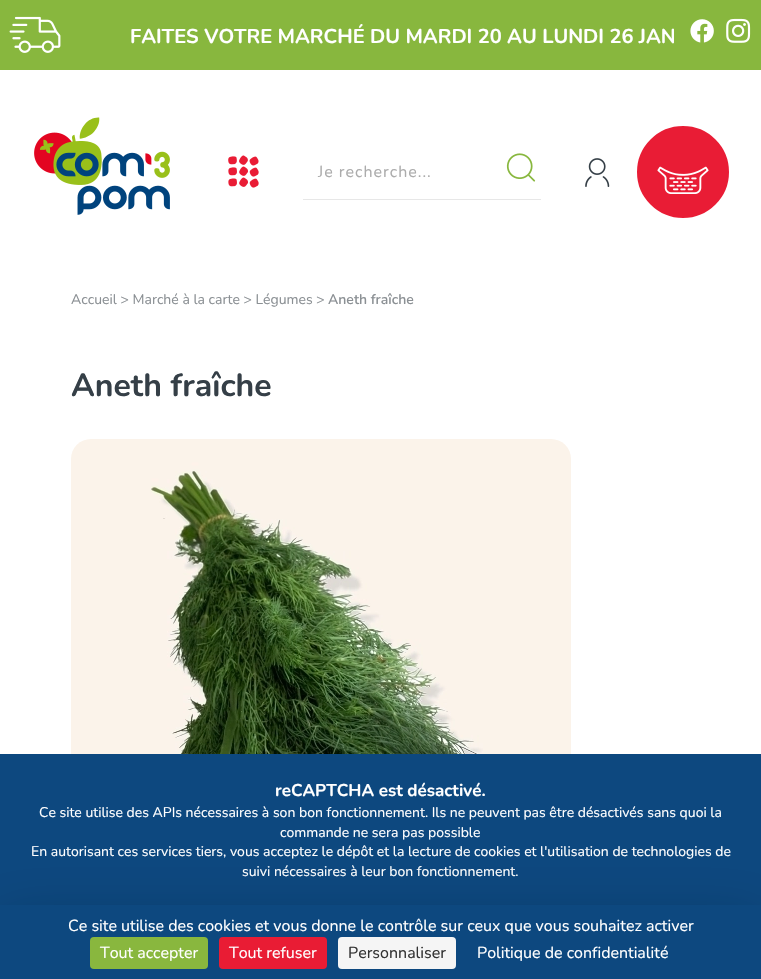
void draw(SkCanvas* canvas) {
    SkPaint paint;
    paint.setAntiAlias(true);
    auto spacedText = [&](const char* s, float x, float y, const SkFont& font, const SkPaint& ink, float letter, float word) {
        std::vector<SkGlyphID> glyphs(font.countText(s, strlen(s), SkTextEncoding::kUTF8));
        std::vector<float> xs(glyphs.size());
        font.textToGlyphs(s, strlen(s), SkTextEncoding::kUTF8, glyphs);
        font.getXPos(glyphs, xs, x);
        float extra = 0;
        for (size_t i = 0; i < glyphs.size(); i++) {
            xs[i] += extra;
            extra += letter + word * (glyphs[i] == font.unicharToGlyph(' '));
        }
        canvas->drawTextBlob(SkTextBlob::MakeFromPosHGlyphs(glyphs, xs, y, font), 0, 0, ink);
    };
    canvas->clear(0xFFFFFFFF);
    paint.setColor(0xFF88B73E);
    canvas->drawRect(SkRect::MakeXYWH(0, 0, 761, 70), paint);
    canvas->drawImageRect(SkImages::DeferredFromEncodedData(SkData::MakeFromFileName("img1.png")), SkRect::MakeXYWH(9, 16, 52, 37), SkSamplingOptions());
    canvas->save();
    canvas->clipRect(SkRect::MakeXYWH(80, 23, 594, 24));
    SkFont font1(fontMgr->matchFamilyStyle("Nunito", SkFontStyle::Bold()), 20);
    font1.setSubpixel(true);
    paint.setColor(0xFFFFFFFF);
    canvas->drawString("FAITES VOTRE MARCHÉ DU MARDI 20 AU LUNDI 26 JAN", 130, 43, font1, paint);
    canvas->restore();
    canvas->drawImageRect(SkImages::DeferredFromEncodedData(SkData::MakeFromFileName("img2.png")), SkRect::MakeXYWH(690, 19, 24, 24), SkSamplingOptions());
    canvas->drawImageRect(SkImages::DeferredFromEncodedData(SkData::MakeFromFileName("img3.png")), SkRect::MakeXYWH(726, 18, 25, 25), SkSamplingOptions());
    canvas->drawImageRect(SkImages::DeferredFromEncodedData(SkData::MakeFromFileName("img5.png")), SkRect::MakeXYWH(34, 132, 136, 83), SkSamplingOptions());
    canvas->drawImageRect(SkImages::DeferredFromEncodedData(SkData::MakeFromFileName("img4.png")), SkRect::MakeXYWH(79, 117, 21, 22), SkSamplingOptions());
    canvas->drawImageRect(SkImages::DeferredFromEncodedData(SkData::MakeFromFileName("img6.png")), SkRect::MakeXYWH(228, 155, 31, 33), SkSamplingOptions());
    paint.setColor(0xFFE7E7E7);
    canvas->drawRect(SkRect::MakeXYWH(303, 199, 238, 1), paint);
    SkFont font2(fontMgr->matchFamilyStyle("Nunito", SkFontStyle::Normal()), 16);
    font2.setSubpixel(true);
    paint.setColor(0xFFACACAC);
    spacedText("Je recherche...", 318, 177, font2, paint, 1, 0);
    canvas->drawImageRect(SkImages::DeferredFromEncodedData(SkData::MakeFromFileName("img7.png")), SkRect::MakeXYWH(506, 153, 30, 29), SkSamplingOptions());
    canvas->drawImageRect(SkImages::DeferredFromEncodedData(SkData::MakeFromFileName("img8.png")), SkRect::MakeXYWH(585, 158, 25, 29), SkSamplingOptions());
    paint.setColor(0xFFE91C35);
    canvas->drawCircle(683, 172, 47, paint);
    paint.setStyle(SkPaint::kStroke_Style);
    paint.setStrokeWidth(2);
    paint.setColor(0xFFFFFFFF);
    canvas->drawCircle(683, 172, 47, paint);
    canvas->drawImageRect(SkImages::DeferredFromEncodedData(SkData::MakeFromFileName("img9.png")), SkRect::MakeXYWH(657, 166, 52, 28), SkSamplingOptions());
    SkFont font3(fontMgr->matchFamilyStyle("Nunito", SkFontStyle::Normal()), 14);
    font3.setSubpixel(true);
    paint.setStyle(SkPaint::kFill_Style);
    paint.setColor(0xFF8B9094);
    canvas->drawString("Accueil > Marché à la carte > Légumes >", 71, 304, font3, paint);
    SkFont font4(fontMgr->matchFamilyStyle("Nunito", SkFontStyle(600, SkFontStyle::kNormal_Width, SkFontStyle::kUpright_Slant)), 14);
    font4.setSubpixel(true);
    canvas->drawString("Aneth fraîche", 328, 304, font4, paint);
    SkFont font5(fontMgr->matchFamilyStyle("Nunito", SkFontStyle::Bold()), 32);
    font5.setSubpixel(true);
    paint.setColor(0xFF353F47);
    canvas->drawString("Aneth fraîche", 71, 396, font5, paint);
    canvas->drawImageRect(SkImages::DeferredFromEncodedData(SkData::MakeFromFileName("img10.png")), SkRect::MakeXYWH(71, 439, 500, 315), SkSamplingOptions());
    paint.setColor(0xFF0D487F);
    canvas->drawRect(SkRect::MakeXYWH(0, 754, 761, 151), paint);
    SkFont font6(fontMgr->matchFamilyStyle("Nunito", SkFontStyle::Bold()), 17);
    font6.setSubpixel(true);
    paint.setColor(0xFFFFFFFF);
    canvas->drawString("reCAPTCHA est désactivé.", 275, 796, font6, paint);
    canvas->drawString("Ce site utilise des APIs nécessaires à son bon fonctionnement. Ils ne peuvent pas être désactivés sans quoi la", 39, 817, font3, paint);
    canvas->drawString("commande ne sera pas possible", 280, 837, font3, paint);
    canvas->drawString("En autorisant ces services tiers, vous acceptez le dépôt et la lecture de cookies et l'utilisation de technologies de", 31, 856, font3, paint);
    canvas->drawString("suivi nécessaires à leur bon fonctionnement.", 242, 876, font3, paint);
    paint.setColor(0x40000000);
    paint.setMaskFilter(SkMaskFilter::MakeBlur(kNormal_SkBlurStyle, 30));
    canvas->drawRect(SkRect::MakeXYWH(0, 925, 761, 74), paint);
    paint.setMaskFilter(nullptr);
    paint.setColor(0xFF0D487F);
    canvas->drawRect(SkRect::MakeXYWH(0, 905, 761, 74), paint);
    paint.setColor(0xFFFFFFFF);
    canvas->drawString("Ce site utilise des cookies et vous donne le contrôle sur ceux que vous souhaitez activer", 68, 931, font2, paint);
    paint.setColor(0xFF89B73E);
    canvas->drawRoundRect(SkRect::MakeXYWH(90, 937, 118, 32), 4, 4, paint);
    paint.setColor(0xFFFFFFFF);
    canvas->drawString("Tout accepter", 100, 958, font2, paint);
    paint.setColor(0xFFE91C34);
    canvas->drawRoundRect(SkRect::MakeXYWH(219, 937, 108, 32), 4, 4, paint);
    paint.setColor(0xFFFFFFFF);
    canvas->drawString("Tout refuser", 229, 958, font2, paint);
    paint.setColor(0xFFF5F5F5);
    canvas->drawRoundRect(SkRect::MakeXYWH(338, 937, 118, 32), 4, 4, paint);
    paint.setColor(0xFF333333);
    canvas->drawString("Personnaliser", 348, 958, font2, paint);
    paint.setColor(0xFFFFFFFF);
    canvas->drawString("Politique de confidentialité", 477, 958, font2, paint);
}
